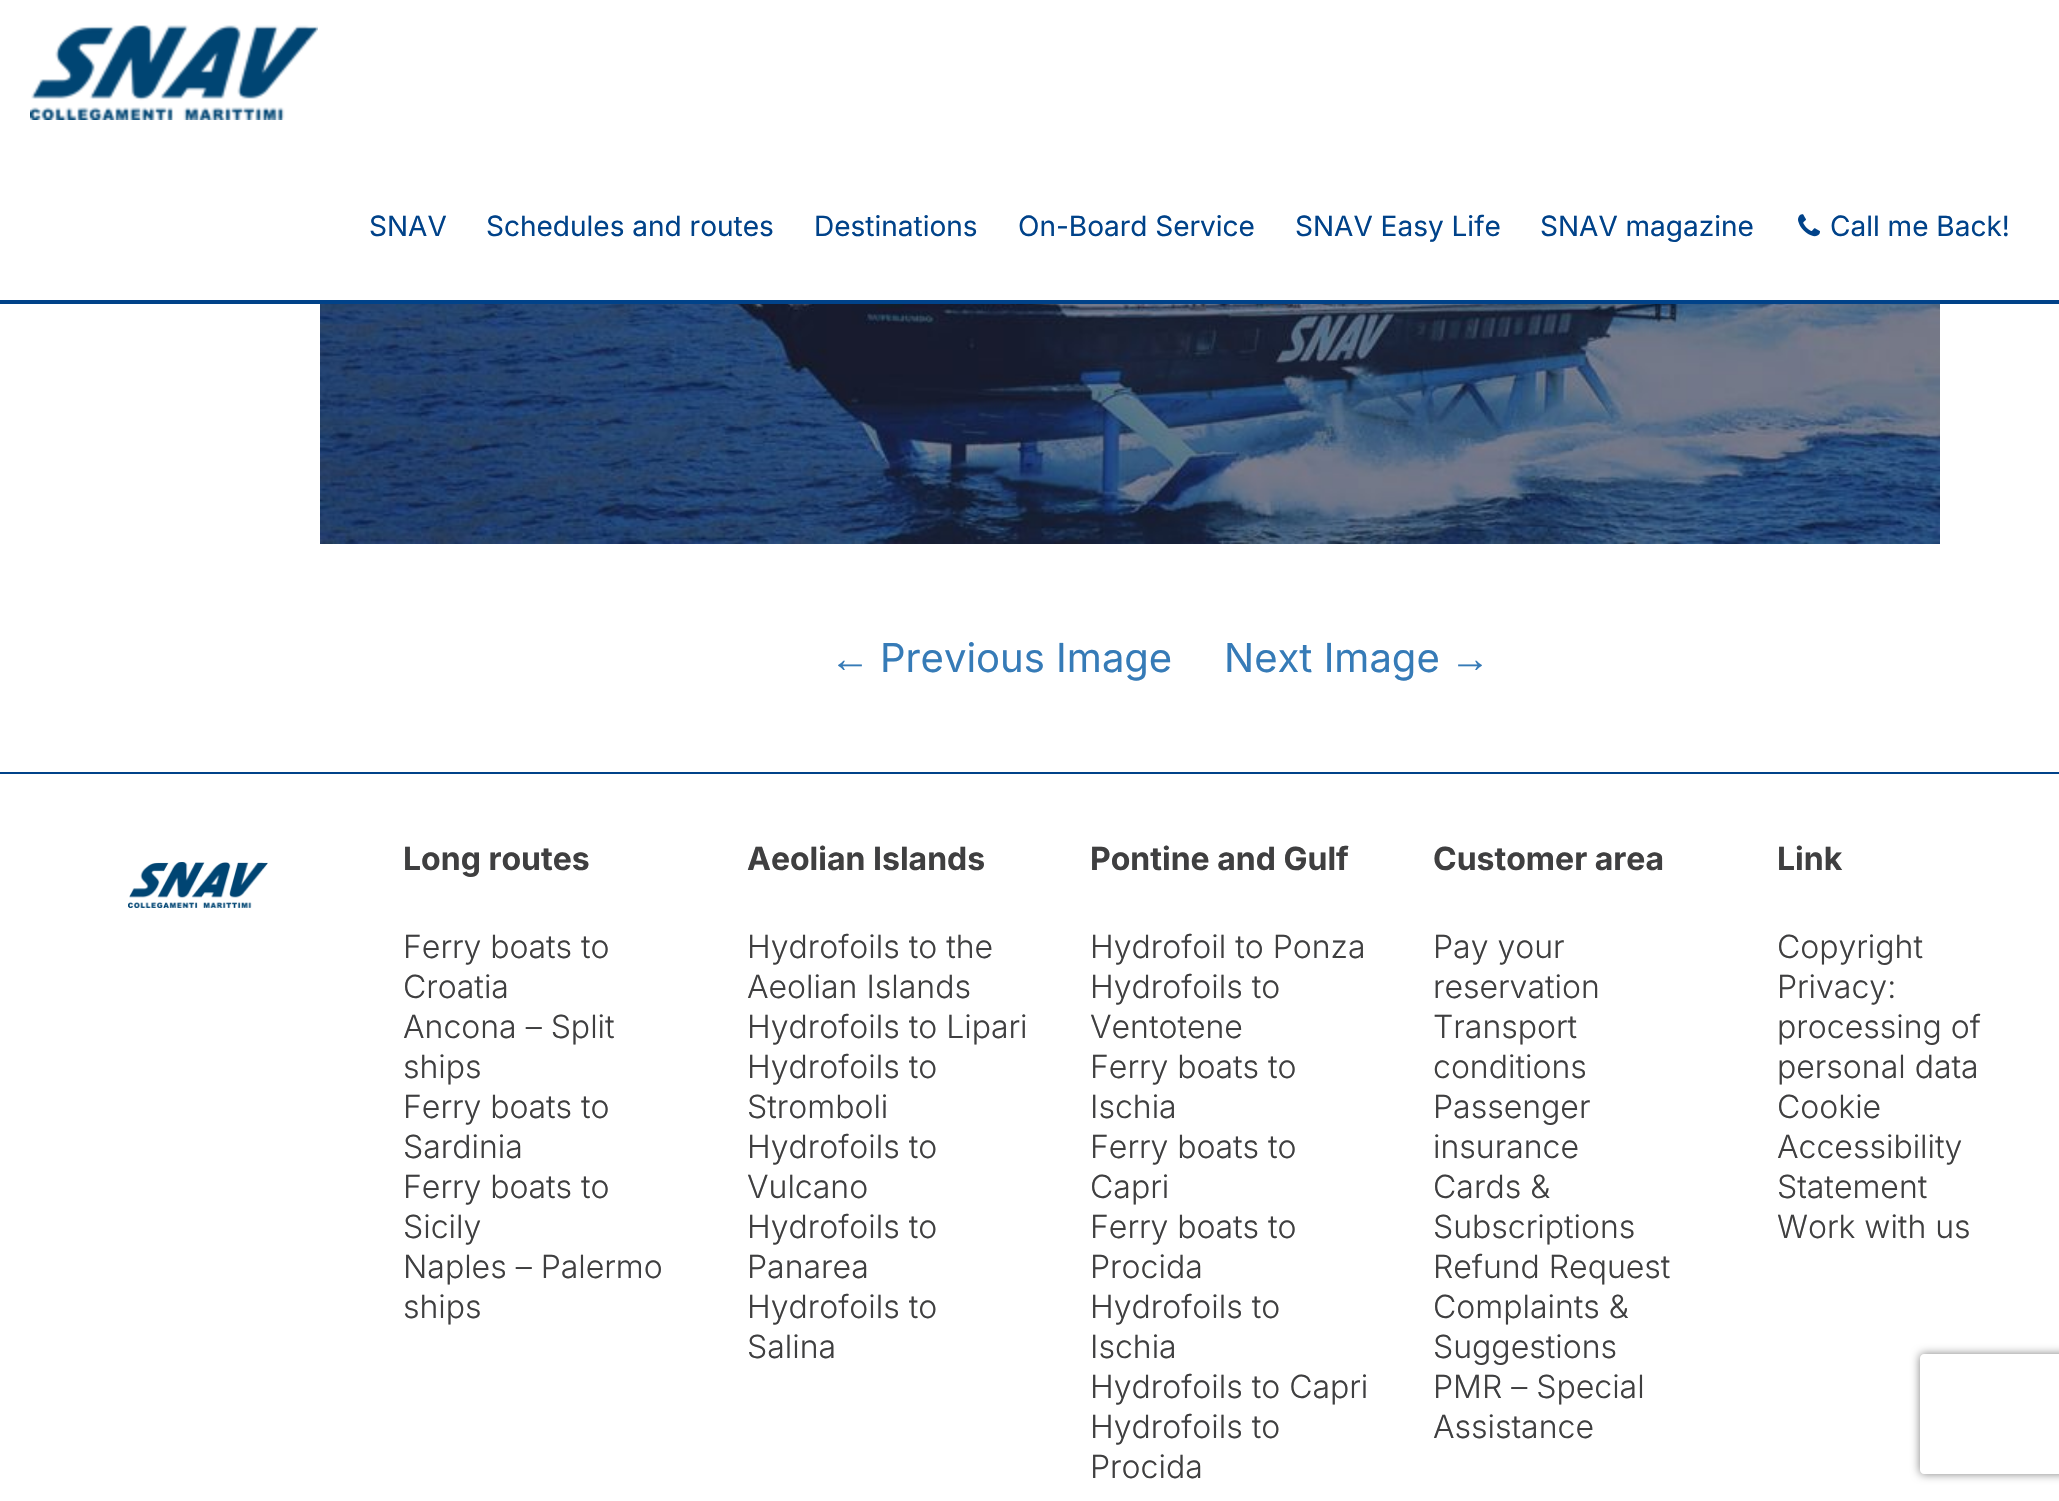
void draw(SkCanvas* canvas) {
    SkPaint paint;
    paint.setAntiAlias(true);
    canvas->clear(0xFFFFFFFF);
    paint.setColor(0xFF004289);
    canvas->drawRect(SkRect::MakeXYWH(0, 300, 2059, 4), paint);
    canvas->drawImageRect(SkImages::DeferredFromEncodedData(SkData::MakeFromFileName("img1.png")), SkRect::MakeXYWH(30, 25, 288, 95), SkSamplingOptions());
    SkFont font1(fontMgr->matchFamilyStyle("Inter", SkFontStyle::Normal()), 28);
    font1.setSubpixel(true);
    canvas->drawString("SNAV", 369, 236, font1, paint);
    canvas->drawString("Schedules and routes", 486, 236, font1, paint);
    canvas->drawString("Destinations", 814, 236, font1, paint);
    canvas->drawString("On-Board Service", 1018, 236, font1, paint);
    canvas->drawString("SNAV Easy Life", 1295, 236, font1, paint);
    canvas->drawString("SNAV magazine", 1540, 236, font1, paint);
    canvas->drawImageRect(SkImages::DeferredFromEncodedData(SkData::MakeFromFileName("img2.png")), SkRect::MakeXYWH(1798, 214, 22, 23), SkSamplingOptions());
    canvas->drawString("Call me Back!", 1830, 236, font1, paint);
    canvas->drawImageRect(SkImages::DeferredFromEncodedData(SkData::MakeFromFileName("img3.png")), SkRect::MakeXYWH(320, 304, 1620, 240), SkSamplingOptions());
    SkFont font2(fontMgr->matchFamilyStyle("Liberation Sans", SkFontStyle::Normal()), 40);
    font2.setSubpixel(true);
    paint.setColor(0xFF367BB7);
    canvas->drawString("←", 830, 672, font2, paint);
    SkFont font3(fontMgr->matchFamilyStyle("Inter", SkFontStyle::Normal()), 40);
    font3.setSubpixel(true);
    canvas->drawString("Previous Image", 880, 672, font3, paint);
    canvas->drawString("Next Image", 1224, 672, font3, paint);
    canvas->drawString("→", 1450, 672, font2, paint);
    paint.setColor(0xFF004289);
    canvas->drawRect(SkRect::MakeXYWH(0, 772, 2059, 2), paint);
    canvas->drawImageRect(SkImages::DeferredFromEncodedData(SkData::MakeFromFileName("img4.png")), SkRect::MakeXYWH(128, 862, 140, 46), SkSamplingOptions());
    SkFont font4(fontMgr->matchFamilyStyle("Inter", SkFontStyle::Bold()), 32);
    font4.setSubpixel(true);
    paint.setColor(0xFF3F3F40);
    canvas->drawString("Long routes", 403, 870, font4, paint);
    SkFont font5(fontMgr->matchFamilyStyle("Inter", SkFontStyle(300, SkFontStyle::kNormal_Width, SkFontStyle::kUpright_Slant)), 32);
    font5.setSubpixel(true);
    canvas->drawString("Ferry boats to", 403, 958, font5, paint);
    canvas->drawString("Croatia", 403, 998, font5, paint);
    canvas->drawString("Ancona – Split", 403, 1038, font5, paint);
    canvas->drawString("ships", 403, 1078, font5, paint);
    canvas->drawString("Ferry boats to", 403, 1118, font5, paint);
    canvas->drawString("Sardinia", 403, 1158, font5, paint);
    canvas->drawString("Ferry boats to", 403, 1198, font5, paint);
    canvas->drawString("Sicily", 403, 1238, font5, paint);
    canvas->drawString("Naples – Palermo", 403, 1278, font5, paint);
    canvas->drawString("ships", 403, 1318, font5, paint);
    canvas->drawString("Aeolian Islands", 747, 870, font4, paint);
    canvas->drawString("Hydrofoils to the", 747, 958, font5, paint);
    canvas->drawString("Aeolian Islands", 747, 998, font5, paint);
    canvas->drawString("Hydrofoils to Lipari", 747, 1038, font5, paint);
    canvas->drawString("Hydrofoils to", 747, 1078, font5, paint);
    canvas->drawString("Stromboli", 747, 1118, font5, paint);
    canvas->drawString("Hydrofoils to", 747, 1158, font5, paint);
    canvas->drawString("Vulcano", 747, 1198, font5, paint);
    canvas->drawString("Hydrofoils to", 747, 1238, font5, paint);
    canvas->drawString("Panarea", 747, 1278, font5, paint);
    canvas->drawString("Hydrofoils to", 747, 1318, font5, paint);
    canvas->drawString("Salina", 747, 1358, font5, paint);
    canvas->drawString("Pontine and Gulf", 1090, 870, font4, paint);
    canvas->drawString("Hydrofoil to Ponza", 1090, 958, font5, paint);
    canvas->drawString("Hydrofoils to", 1090, 998, font5, paint);
    canvas->drawString("Ventotene", 1090, 1038, font5, paint);
    canvas->drawString("Ferry boats to", 1090, 1078, font5, paint);
    canvas->drawString("Ischia", 1090, 1118, font5, paint);
    canvas->drawString("Ferry boats to", 1090, 1158, font5, paint);
    canvas->drawString("Capri", 1090, 1198, font5, paint);
    canvas->drawString("Ferry boats to", 1090, 1238, font5, paint);
    canvas->drawString("Procida", 1090, 1278, font5, paint);
    canvas->drawString("Hydrofoils to", 1090, 1318, font5, paint);
    canvas->drawString("Ischia", 1090, 1358, font5, paint);
    canvas->drawString("Hydrofoils to Capri", 1090, 1398, font5, paint);
    canvas->drawString("Hydrofoils to", 1090, 1438, font5, paint);
    canvas->drawString("Procida", 1090, 1478, font5, paint);
    canvas->drawString("Customer area", 1433, 870, font4, paint);
    canvas->drawString("Pay your", 1433, 958, font5, paint);
    canvas->drawString("reservation", 1433, 998, font5, paint);
    canvas->drawString("Transport", 1433, 1038, font5, paint);
    canvas->drawString("conditions", 1433, 1078, font5, paint);
    canvas->drawString("Passenger", 1433, 1118, font5, paint);
    canvas->drawString("insurance", 1433, 1158, font5, paint);
    canvas->drawString("Cards &", 1433, 1198, font5, paint);
    canvas->drawString("Subscriptions", 1433, 1238, font5, paint);
    canvas->drawString("Refund Request", 1433, 1278, font5, paint);
    canvas->drawString("Complaints &", 1433, 1318, font5, paint);
    canvas->drawString("Suggestions", 1433, 1358, font5, paint);
    canvas->drawString("PMR – Special", 1433, 1398, font5, paint);
    canvas->drawString("Assistance", 1433, 1438, font5, paint);
    canvas->drawString("Link", 1777, 870, font4, paint);
    canvas->drawString("Copyright", 1777, 958, font5, paint);
    canvas->drawString("Privacy:", 1777, 998, font5, paint);
    canvas->drawString("processing of", 1777, 1038, font5, paint);
    canvas->drawString("personal data", 1777, 1078, font5, paint);
    canvas->drawString("Cookie", 1777, 1118, font5, paint);
    canvas->drawString("Accessibility", 1777, 1158, font5, paint);
    canvas->drawString("Statement", 1777, 1198, font5, paint);
    canvas->drawString("Work with us", 1777, 1238, font5, paint);
    canvas->save();
    canvas->clipPath(SkPathBuilder(SkPathFillType::kEvenOdd).moveTo(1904, 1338).lineTo(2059, 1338).lineTo(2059, 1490).lineTo(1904, 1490).close().moveTo(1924, 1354).lineTo(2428, 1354).cubicTo(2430, 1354, 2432, 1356, 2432, 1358).lineTo(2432, 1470).cubicTo(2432, 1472, 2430, 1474, 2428, 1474).lineTo(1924, 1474).cubicTo(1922, 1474, 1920, 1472, 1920, 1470).lineTo(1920, 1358).cubicTo(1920, 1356, 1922, 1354, 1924, 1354).close().detach(), true);
    paint.setColor(0xFF808080);
    paint.setMaskFilter(SkMaskFilter::MakeBlur(kNormal_SkBlurStyle, 5));
    canvas->drawRoundRect(SkRect::MakeXYWH(1920, 1354, 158, 120), 4, 4, paint);
    paint.setMaskFilter(nullptr);
    canvas->restore();
}
